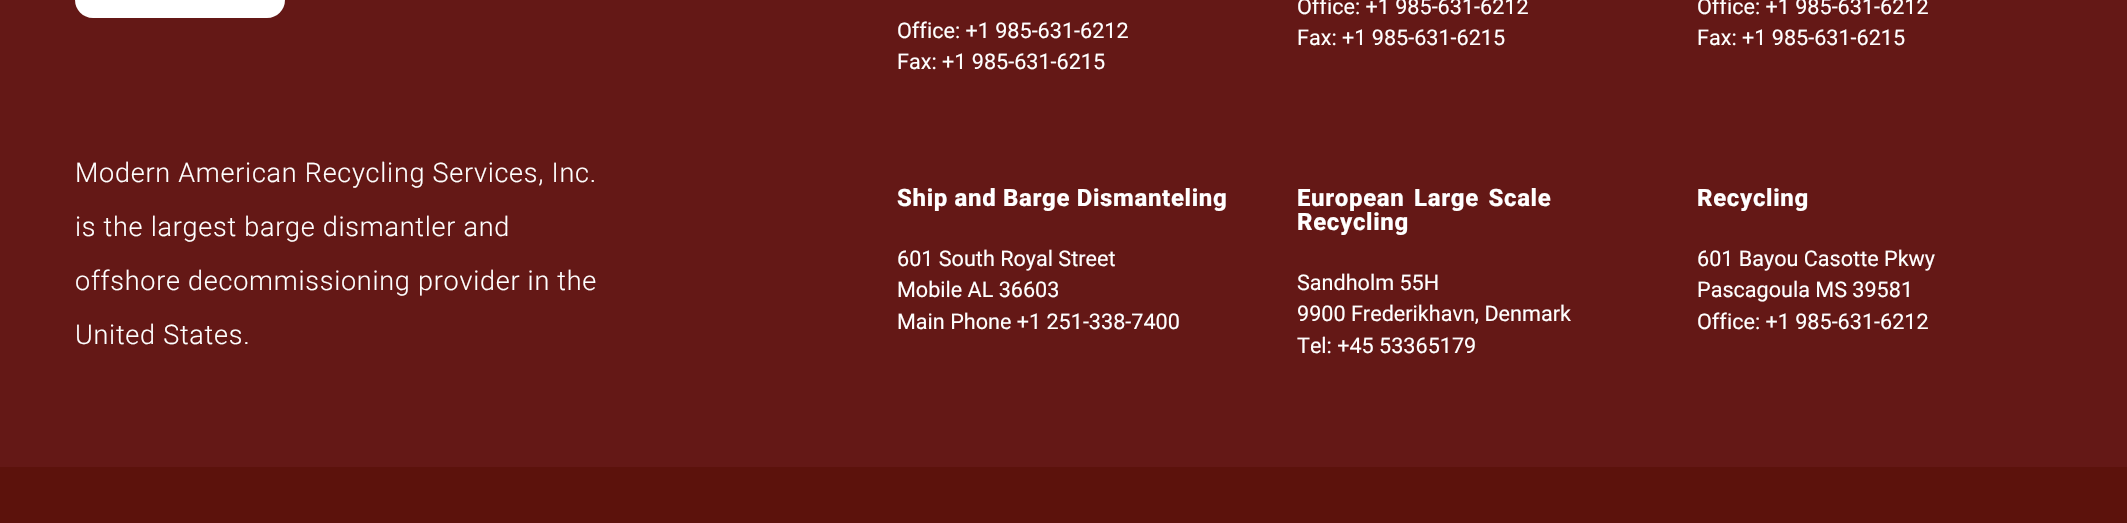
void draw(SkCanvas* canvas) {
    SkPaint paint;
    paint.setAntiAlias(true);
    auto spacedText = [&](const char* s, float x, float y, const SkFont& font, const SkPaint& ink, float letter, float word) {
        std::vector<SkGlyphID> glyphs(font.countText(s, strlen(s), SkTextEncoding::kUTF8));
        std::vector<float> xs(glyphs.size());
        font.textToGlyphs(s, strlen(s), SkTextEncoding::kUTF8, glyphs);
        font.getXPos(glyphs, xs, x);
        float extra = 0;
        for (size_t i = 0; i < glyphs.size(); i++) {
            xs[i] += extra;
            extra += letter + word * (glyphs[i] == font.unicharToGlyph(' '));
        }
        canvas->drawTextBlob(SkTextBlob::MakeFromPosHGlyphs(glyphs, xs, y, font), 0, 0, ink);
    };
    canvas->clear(0xFF641816);
    paint.setColor(0xFFFFFFFF);
    canvas->drawPath(SkPathBuilder().moveTo(75, -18).lineTo(285, -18).lineTo(285, 0).cubicTo(285, 10, 277, 18, 267, 18).lineTo(93, 18).cubicTo(83, 18, 75, 10, 75, 0).close().detach(), paint);
    SkFont font1(fontMgr->matchFamilyStyle("Roboto", SkFontStyle(300, SkFontStyle::kNormal_Width, SkFontStyle::kUpright_Slant)), 27);
    font1.setSubpixel(true);
    spacedText("Modern American Recycling Services, Inc.", 75, 182, font1, paint, 0.75f, 0);
    spacedText("is the largest barge dismantler and", 75, 236, font1, paint, 0.75f, 0);
    spacedText("offshore decommissioning provider in the", 75, 290, font1, paint, 0.75f, 0);
    spacedText("United States.", 75, 344, font1, paint, 0.75f, 0);
    SkFont font2(fontMgr->matchFamilyStyle("Roboto", SkFontStyle::Normal()), 21.6f);
    font2.setSubpixel(true);
    canvas->drawString("Office: +1 985-631-6212", 897, 38, font2, paint);
    canvas->drawString("Fax: +1 985-631-6215", 897, 69, font2, paint);
    canvas->drawString("Office: +1 985-631-6212", 1297, 14, font2, paint);
    canvas->drawString("Fax: +1 985-631-6215", 1297, 45, font2, paint);
    canvas->drawString("Office: +1 985-631-6212", 1697, 14, font2, paint);
    canvas->drawString("Fax: +1 985-631-6215", 1697, 45, font2, paint);
    SkFont font3(fontMgr->matchFamilyStyle("Roboto", SkFontStyle(800, SkFontStyle::kNormal_Width, SkFontStyle::kUpright_Slant)), 24);
    font3.setSubpixel(true);
    spacedText("Ship and Barge Dismanteling", 897, 206, font3, paint, 0.65f, 0);
    canvas->drawString("601 South Royal Street", 897, 266, font2, paint);
    canvas->drawString("Mobile AL 36603", 897, 297, font2, paint);
    canvas->drawString("Main Phone +1 251-338-7400", 897, 329, font2, paint);
    spacedText("European Large Scale", 1297, 206, font3, paint, 0.65f, 3);
    spacedText("Recycling", 1297, 230, font3, paint, 0.65f, 0);
    canvas->drawString("Sandholm 55H", 1297, 290, font2, paint);
    canvas->drawString("9900 Frederikhavn, Denmark", 1297, 321, font2, paint);
    canvas->drawString("Tel: +45 53365179", 1297, 353, font2, paint);
    spacedText("Recycling", 1697, 206, font3, paint, 0.65f, 0);
    canvas->drawString("601 Bayou Casotte Pkwy", 1697, 266, font2, paint);
    canvas->drawString("Pascagoula MS 39581", 1697, 297, font2, paint);
    canvas->drawString("Office: +1 985-631-6212", 1697, 329, font2, paint);
    paint.setColor(0xFF5C120C);
    canvas->drawRect(SkRect::MakeXYWH(0, 467, 2127, 56), paint);
}
